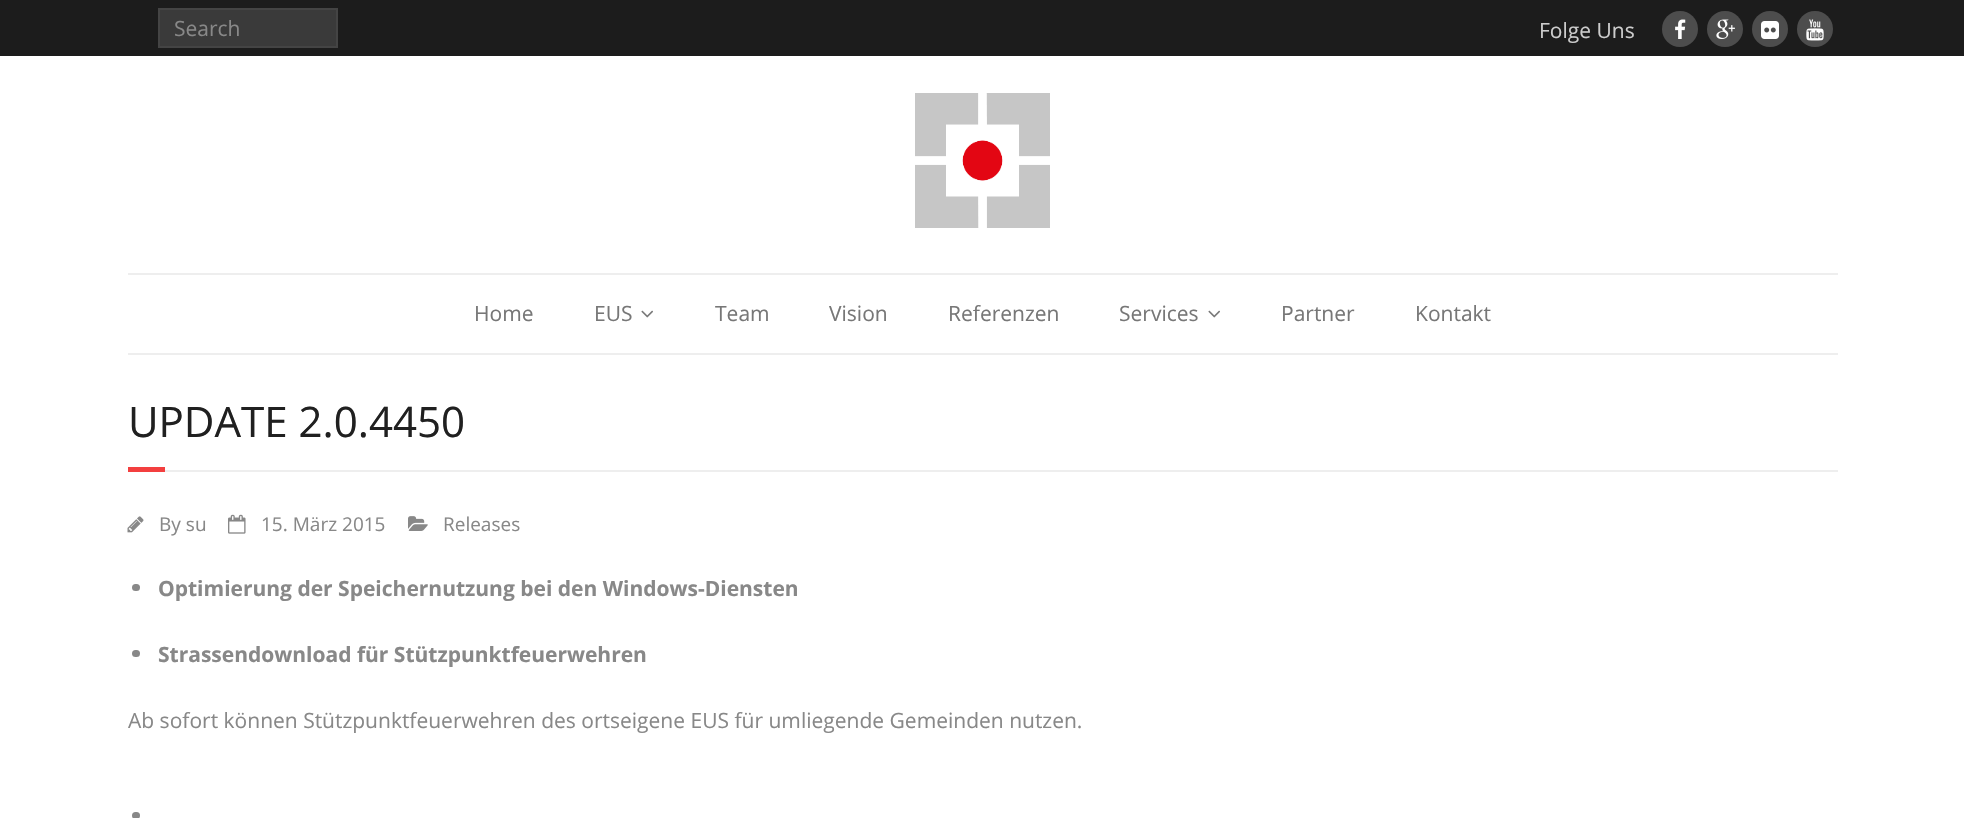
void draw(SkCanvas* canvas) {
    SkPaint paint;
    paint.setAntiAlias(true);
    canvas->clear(0xFFFFFFFF);
    paint.setColor(0xFF1C1C1C);
    canvas->drawRect(SkRect::MakeXYWH(0, 0, 1964, 56), paint);
    paint.setColor(0xFF3A3A3A);
    canvas->drawRect(SkRect::MakeXYWH(159, 9, 178, 38), paint);
    paint.setStyle(SkPaint::kStroke_Style);
    paint.setStrokeWidth(2);
    paint.setColor(0xFF444444);
    canvas->drawRect(SkRect::MakeXYWH(159, 9, 178, 38), paint);
    SkFont font1(fontMgr->matchFamilyStyle("Open Sans", SkFontStyle::Normal()), 21);
    font1.setSubpixel(true);
    paint.setStyle(SkPaint::kFill_Style);
    paint.setColor(0xFF888888);
    canvas->drawString("Search", 174, 36, font1, paint);
    paint.setColor(0xFFCCCCCC);
    canvas->drawString("Folge Uns", 1539, 38, font1, paint);
    paint.setColor(0xFF4D4D4D);
    canvas->drawCircle(1680, 29, 18, paint);
    canvas->drawImageRect(SkImages::DeferredFromEncodedData(SkData::MakeFromFileName("img1.png")), SkRect::MakeXYWH(1675, 19, 11, 20), SkSamplingOptions());
    canvas->drawCircle(1725, 29, 18, paint);
    canvas->drawImageRect(SkImages::DeferredFromEncodedData(SkData::MakeFromFileName("img2.png")), SkRect::MakeXYWH(1716, 19, 19, 20), SkSamplingOptions());
    canvas->drawCircle(1770, 29, 18, paint);
    canvas->drawImageRect(SkImages::DeferredFromEncodedData(SkData::MakeFromFileName("img3.png")), SkRect::MakeXYWH(1761, 21, 18, 18), SkSamplingOptions());
    canvas->drawCircle(1815, 29, 18, paint);
    canvas->drawImageRect(SkImages::DeferredFromEncodedData(SkData::MakeFromFileName("img4.png")), SkRect::MakeXYWH(1806, 19, 18, 22), SkSamplingOptions());
    canvas->drawImageRect(SkImages::DeferredFromEncodedData(SkData::MakeFromFileName("img5.png")), SkRect::MakeXYWH(915, 93, 135, 135), SkSamplingOptions());
    paint.setColor(0xFFEEEEEE);
    canvas->drawRect(SkRect::MakeXYWH(128, 273, 1710, 2), paint);
    canvas->drawRect(SkRect::MakeXYWH(128, 353, 1710, 2), paint);
    paint.setColor(0xFF777777);
    canvas->drawString("Home", 474, 321, font1, paint);
    canvas->drawString("EUS", 594, 321, font1, paint);
    canvas->drawImageRect(SkImages::DeferredFromEncodedData(SkData::MakeFromFileName("img6.png")), SkRect::MakeXYWH(641, 310, 12, 8), SkSamplingOptions());
    canvas->drawString("Team", 715, 321, font1, paint);
    canvas->drawString("Vision", 829, 321, font1, paint);
    canvas->drawString("Referenzen", 948, 321, font1, paint);
    canvas->drawString("Services", 1119, 321, font1, paint);
    canvas->drawImageRect(SkImages::DeferredFromEncodedData(SkData::MakeFromFileName("img6.png")), SkRect::MakeXYWH(1208, 310, 12, 8), SkSamplingOptions());
    canvas->drawString("Partner", 1281, 321, font1, paint);
    canvas->drawString("Kontakt", 1415, 321, font1, paint);
    SkFont font2(fontMgr->matchFamilyStyle("Open Sans", SkFontStyle::Normal()), 42);
    font2.setSubpixel(true);
    paint.setColor(0xFF202020);
    canvas->drawString("UPDATE 2.0.4450", 128, 437, font2, paint);
    paint.setColor(0xFFF33F3F);
    canvas->drawRect(SkRect::MakeXYWH(128, 467, 37, 5), paint);
    paint.setColor(0xFFEEEEEE);
    canvas->drawRect(SkRect::MakeXYWH(165, 470, 1673, 2), paint);
    canvas->drawImageRect(SkImages::DeferredFromEncodedData(SkData::MakeFromFileName("img7.png")), SkRect::MakeXYWH(127, 516, 17, 17), SkSamplingOptions());
    SkFont font3(fontMgr->matchFamilyStyle("Open Sans", SkFontStyle::Normal()), 19);
    font3.setSubpixel(true);
    paint.setColor(0xFF888888);
    canvas->drawString("By su", 159, 531, font3, paint);
    canvas->drawImageRect(SkImages::DeferredFromEncodedData(SkData::MakeFromFileName("img8.png")), SkRect::MakeXYWH(228, 514, 18, 20), SkSamplingOptions());
    canvas->drawString("15. März 2015", 261, 531, font3, paint);
    canvas->drawImageRect(SkImages::DeferredFromEncodedData(SkData::MakeFromFileName("img9.png")), SkRect::MakeXYWH(408, 516, 20, 15), SkSamplingOptions());
    canvas->drawString("Releases", 443, 531, font3, paint);
    canvas->drawRoundRect(SkRect::MakeXYWH(132, 584, 8, 7), 3.5f, 3.5f, paint);
    SkFont font4(fontMgr->matchFamilyStyle("Open Sans", SkFontStyle::Bold()), 21);
    font4.setSubpixel(true);
    canvas->drawString("Optimierung der Speichernutzung bei den Windows-Diensten", 158, 596, font4, paint);
    canvas->drawRoundRect(SkRect::MakeXYWH(132, 650, 8, 7), 3.5f, 3.5f, paint);
    canvas->drawString("Strassendownload für Stützpunktfeuerwehren", 158, 662, font4, paint);
    canvas->drawString("Ab sofort können Stützpunktfeuerwehren des ortseigene EUS für umliegende Gemeinden nutzen.", 128, 728, font1, paint);
    canvas->drawRoundRect(SkRect::MakeXYWH(132, 812, 8, 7), 3.5f, 3.5f, paint);
}
